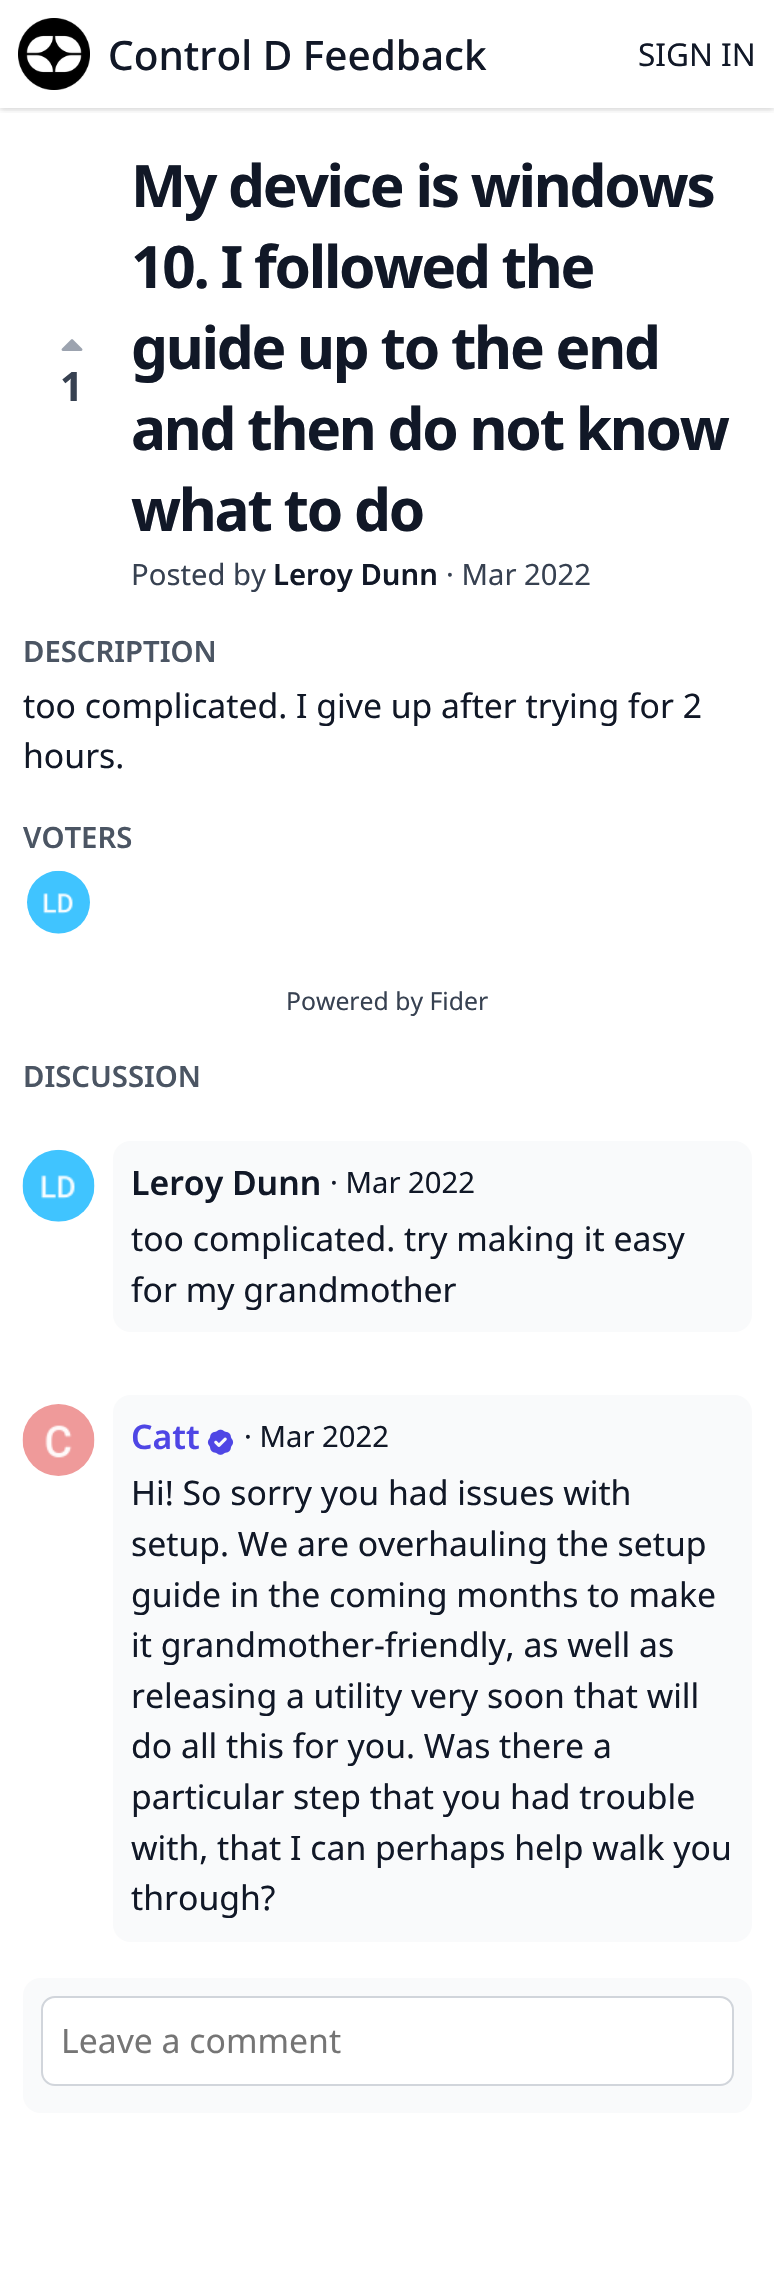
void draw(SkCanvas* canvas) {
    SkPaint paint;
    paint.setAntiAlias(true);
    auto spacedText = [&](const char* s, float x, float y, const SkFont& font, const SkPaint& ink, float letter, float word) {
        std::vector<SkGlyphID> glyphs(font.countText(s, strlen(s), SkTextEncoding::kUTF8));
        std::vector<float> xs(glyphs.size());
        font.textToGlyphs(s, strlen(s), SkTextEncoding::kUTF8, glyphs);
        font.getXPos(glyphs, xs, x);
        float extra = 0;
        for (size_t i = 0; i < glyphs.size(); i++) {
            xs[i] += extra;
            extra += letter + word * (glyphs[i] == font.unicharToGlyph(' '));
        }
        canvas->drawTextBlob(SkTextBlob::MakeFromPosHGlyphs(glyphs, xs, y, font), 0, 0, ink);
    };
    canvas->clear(0xFFFFFFFF);
    canvas->save();
    canvas->clipRect(SkRect::MakeXYWH(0, 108, 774, 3));
    paint.setColor(0x0F000000);
    paint.setMaskFilter(SkMaskFilter::MakeBlur(kNormal_SkBlurStyle, 2));
    canvas->drawRect(SkRect::MakeXYWH(0, 2, 774, 108), paint);
    paint.setMaskFilter(nullptr);
    canvas->restore();
    canvas->save();
    canvas->clipRect(SkRect::MakeXYWH(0, 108, 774, 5));
    paint.setColor(0x1A000000);
    paint.setMaskFilter(SkMaskFilter::MakeBlur(kNormal_SkBlurStyle, 3.5f));
    canvas->drawRect(SkRect::MakeXYWH(0, 2, 774, 108), paint);
    paint.setMaskFilter(nullptr);
    canvas->restore();
    canvas->drawImageRect(SkImages::DeferredFromEncodedData(SkData::MakeFromFileName("img1.png")), SkRect::MakeXYWH(18, 18, 72, 72), SkSamplingOptions());
    SkFont font1(fontMgr->matchFamilyStyle("Noto Sans", SkFontStyle(500, SkFontStyle::kNormal_Width, SkFontStyle::kUpright_Slant)), 40.5f);
    font1.setSubpixel(true);
    paint.setColor(0xFF111827);
    canvas->drawString("Control D Feedback", 108, 70, font1, paint);
    SkFont font2(fontMgr->matchFamilyStyle("Noto Sans", SkFontStyle::Normal()), 31.5f);
    font2.setSubpixel(true);
    canvas->drawString("SIGN IN", 638, 66, font2, paint);
    canvas->drawImageRect(SkImages::DeferredFromEncodedData(SkData::MakeFromFileName("img2.png")), SkRect::MakeXYWH(61, 339, 22, 12), SkSamplingOptions());
    SkFont font3(fontMgr->matchFamilyStyle("Noto Sans", SkFontStyle::Bold()), 40.5f);
    font3.setSubpixel(true);
    paint.setColor(0xFF374151);
    canvas->drawString("1", 60, 401, font3, paint);
    SkFont font4(fontMgr->matchFamilyStyle("Noto Sans", SkFontStyle::Bold()), 58.5f);
    font4.setSubpixel(true);
    paint.setColor(0xFF111827);
    spacedText("My device is windows", 131, 207, font4, paint, -2.25f, 0);
    spacedText("10. I followed the", 131, 288, font4, paint, -2.25f, 0);
    spacedText("guide up to the end", 131, 369, font4, paint, -2.25f, 0);
    spacedText("and then do not know", 131, 450, font4, paint, -2.25f, 0);
    spacedText("what to do", 131, 531, font4, paint, -2.25f, 0);
    SkFont font5(fontMgr->matchFamilyStyle("Noto Sans", SkFontStyle::Normal()), 29.25f);
    font5.setSubpixel(true);
    paint.setColor(0xFF374151);
    canvas->drawString("Posted by", 131, 585, font5, paint);
    SkFont font6(fontMgr->matchFamilyStyle("Noto Sans", SkFontStyle(600, SkFontStyle::kNormal_Width, SkFontStyle::kUpright_Slant)), 29.25f);
    font6.setSubpixel(true);
    paint.setColor(0xFF111827);
    canvas->drawString("Leroy Dunn", 273, 585, font6, paint);
    paint.setColor(0xFF374151);
    canvas->drawString("· Mar 2022", 446, 585, font5, paint);
    paint.setColor(0xFF4B5563);
    canvas->drawString("DESCRIPTION", 23, 662, font6, paint);
    SkFont font7(fontMgr->matchFamilyStyle("Noto Sans", SkFontStyle::Normal()), 33.75f);
    font7.setSubpixel(true);
    paint.setColor(0xFF111827);
    canvas->drawString("too complicated. I give up after trying for 2", 23, 718, font7, paint);
    canvas->drawString("hours.", 23, 768, font7, paint);
    paint.setColor(0xFF4B5563);
    canvas->drawString("VOTERS", 23, 848, font6, paint);
    canvas->drawImageRect(SkImages::DeferredFromEncodedData(SkData::MakeFromFileName("img3.png")), SkRect::MakeXYWH(27, 870, 63, 64), SkSamplingOptions());
    SkFont font8(fontMgr->matchFamilyStyle("Noto Sans", SkFontStyle::Normal()), 24.75f);
    font8.setSubpixel(true);
    paint.setColor(0xFF374151);
    canvas->drawString("Powered by Fider", 286, 1010, font8, paint);
    paint.setColor(0xFF4B5563);
    canvas->drawString("DISCUSSION", 23, 1087, font6, paint);
    canvas->drawImageRect(SkImages::DeferredFromEncodedData(SkData::MakeFromFileName("img4.png")), SkRect::MakeXYWH(22, 1149, 73, 73), SkSamplingOptions());
    paint.setColor(0xFFF9FAFB);
    canvas->drawRoundRect(SkRect::MakeXYWH(113, 1141, 639, 191), 18, 18, paint);
    SkFont font9(fontMgr->matchFamilyStyle("Noto Sans", SkFontStyle(600, SkFontStyle::kNormal_Width, SkFontStyle::kUpright_Slant)), 33.75f);
    font9.setSubpixel(true);
    paint.setColor(0xFF111827);
    canvas->drawString("Leroy Dunn", 131, 1195, font9, paint);
    canvas->drawString("· Mar 2022", 330, 1193, font5, paint);
    canvas->drawString("too complicated. try making it easy", 131, 1251, font7, paint);
    canvas->drawString("for my grandmother", 131, 1302, font7, paint);
    canvas->drawImageRect(SkImages::DeferredFromEncodedData(SkData::MakeFromFileName("img5.png")), SkRect::MakeXYWH(22, 1404, 73, 72), SkSamplingOptions());
    paint.setColor(0xFFF9FAFB);
    canvas->drawRoundRect(SkRect::MakeXYWH(113, 1395, 639, 547), 18, 18, paint);
    paint.setColor(0xFF4F46E5);
    canvas->drawString("Catt", 131, 1449, font9, paint);
    canvas->drawImageRect(SkImages::DeferredFromEncodedData(SkData::MakeFromFileName("img6.png")), SkRect::MakeXYWH(207, 1429, 27, 26), SkSamplingOptions());
    paint.setColor(0xFF111827);
    canvas->drawString("· Mar 2022", 244, 1447, font5, paint);
    canvas->drawString("Hi! So sorry you had issues with", 131, 1505, font7, paint);
    canvas->drawString("setup. We are overhauling the setup", 131, 1556, font7, paint);
    canvas->drawString("guide in the coming months to make", 131, 1607, font7, paint);
    canvas->drawString("it grandmother-friendly, as well as", 131, 1657, font7, paint);
    canvas->drawString("releasing a utility very soon that will", 131, 1708, font7, paint);
    canvas->drawString("do all this for you. Was there a", 131, 1758, font7, paint);
    canvas->drawString("particular step that you had trouble", 131, 1809, font7, paint);
    canvas->drawString("with, that I can perhaps help walk you", 131, 1860, font7, paint);
    canvas->drawString("through?", 131, 1910, font7, paint);
    paint.setColor(0xFFF9FAFB);
    canvas->drawRoundRect(SkRect::MakeXYWH(23, 1978, 729, 135), 18, 18, paint);
    paint.setColor(0xFFFFFFFF);
    canvas->drawRoundRect(SkRect::MakeXYWH(42, 1997, 691, 88), 13, 13, paint);
    paint.setStyle(SkPaint::kStroke_Style);
    paint.setStrokeWidth(2);
    paint.setColor(0xFFD1D5DB);
    canvas->drawRoundRect(SkRect::MakeXYWH(42, 1997, 691, 88), 13, 13, paint);
    paint.setStyle(SkPaint::kFill_Style);
    paint.setColor(0xFF757575);
    canvas->drawString("Leave a comment", 61, 2053, font7, paint);
}
